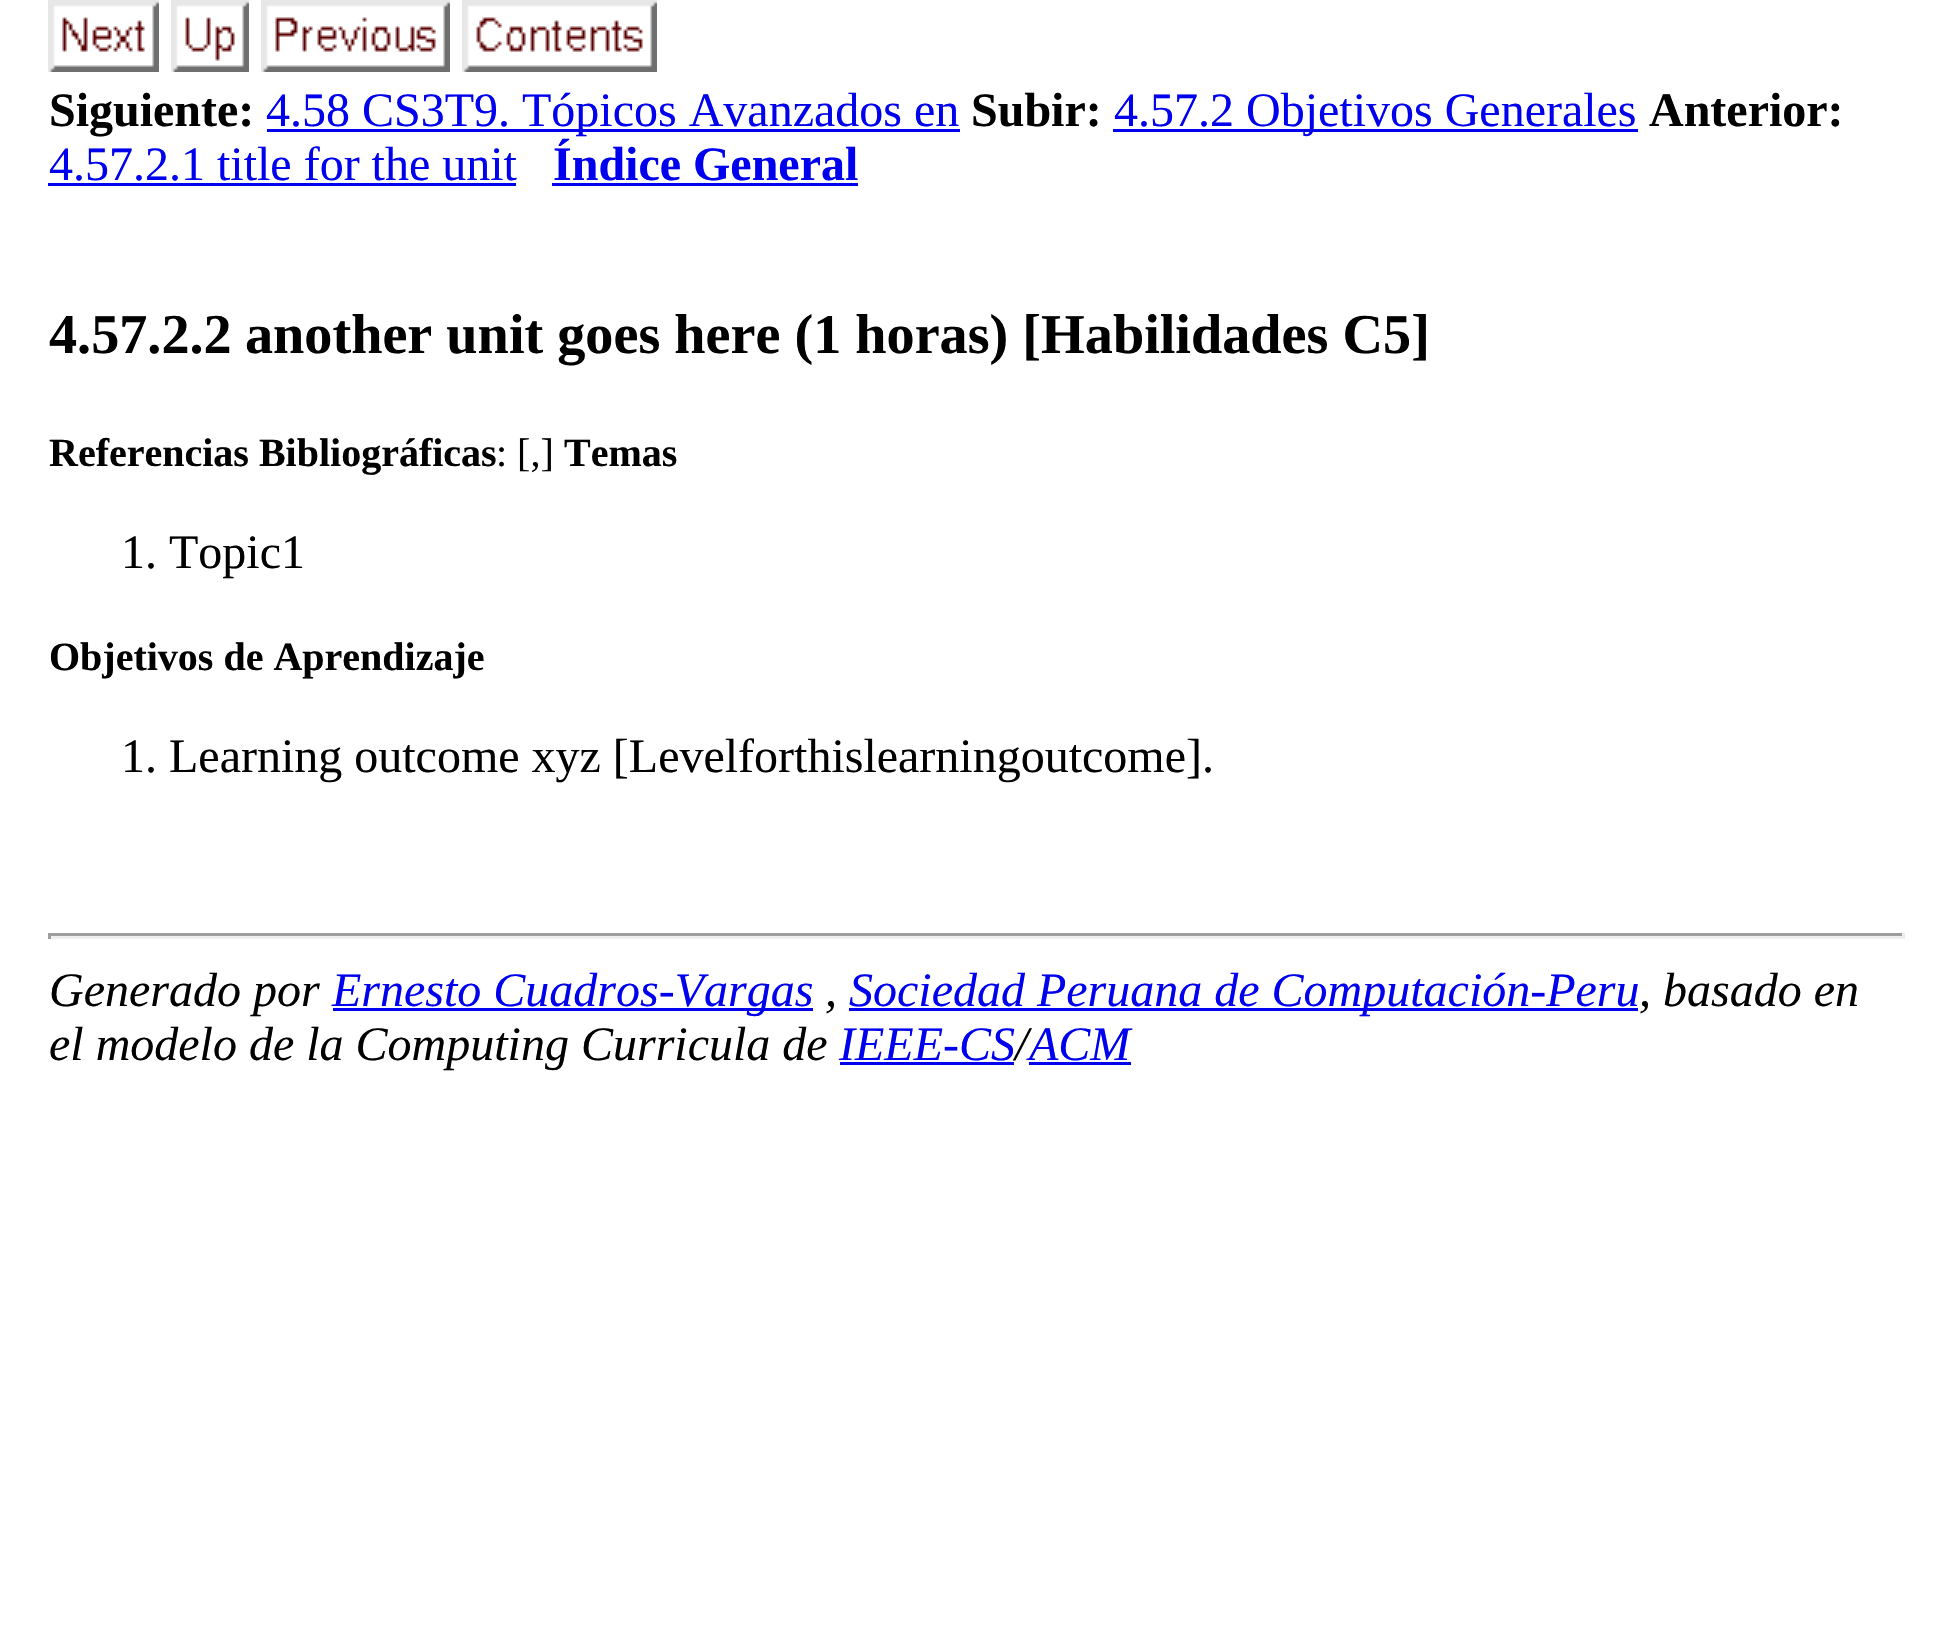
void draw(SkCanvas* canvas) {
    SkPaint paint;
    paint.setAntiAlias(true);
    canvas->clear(0xFFFFFFFF);
    canvas->drawImageRect(SkImages::DeferredFromEncodedData(SkData::MakeFromFileName("img1.png")), SkRect::MakeXYWH(48, 0, 111, 72), SkSamplingOptions());
    canvas->drawImageRect(SkImages::DeferredFromEncodedData(SkData::MakeFromFileName("img2.png")), SkRect::MakeXYWH(171, 0, 78, 72), SkSamplingOptions());
    canvas->drawImageRect(SkImages::DeferredFromEncodedData(SkData::MakeFromFileName("img3.png")), SkRect::MakeXYWH(261, 0, 189, 72), SkSamplingOptions());
    canvas->drawImageRect(SkImages::DeferredFromEncodedData(SkData::MakeFromFileName("img4.png")), SkRect::MakeXYWH(462, 0, 195, 72), SkSamplingOptions());
    SkFont font1(fontMgr->matchFamilyStyle("Liberation Serif", SkFontStyle::Bold()), 48);
    font1.setSubpixel(true);
    paint.setColor(0xFF000000);
    canvas->drawString("Siguiente:", 49, 126, font1, paint);
    paint.setColor(0xFF0000EE);
    canvas->drawRect(SkRect::MakeXYWH(267, 129, 693, 3), paint);
    SkFont font2(fontMgr->matchFamilyStyle("Liberation Serif", SkFontStyle::Normal()), 48);
    font2.setSubpixel(true);
    canvas->drawString("4.58 CS3T9. Tópicos Avanzados en", 266, 126, font2, paint);
    paint.setColor(0xFF000000);
    canvas->drawString("Subir:", 971, 126, font1, paint);
    paint.setColor(0xFF0000EE);
    canvas->drawRect(SkRect::MakeXYWH(1113, 129, 525, 3), paint);
    canvas->drawString("4.57.2 Objetivos Generales", 1114, 126, font2, paint);
    paint.setColor(0xFF000000);
    canvas->drawString("Anterior:", 1649, 126, font1, paint);
    paint.setColor(0xFF0000EE);
    canvas->drawString("4.57.2.1 title for the unit", 49, 180, font2, paint);
    canvas->drawRect(SkRect::MakeXYWH(48, 183, 468, 3), paint);
    canvas->drawString("Índice General", 553, 180, font1, paint);
    canvas->drawRect(SkRect::MakeXYWH(552, 183, 306, 3), paint);
    SkFont font3(fontMgr->matchFamilyStyle("Liberation Serif", SkFontStyle::Bold()), 56.2f);
    font3.setSubpixel(true);
    paint.setColor(0xFF000000);
    canvas->drawString("4.57.2.2", 49, 353, font3, paint);
    canvas->drawString("another unit goes here (1 horas) [Habilidades C5]", 245, 353, font3, paint);
    SkFont font4(fontMgr->matchFamilyStyle("Liberation Serif", SkFontStyle::Bold()), 40);
    font4.setSubpixel(true);
    canvas->drawString("Referencias Bibliográficas", 49, 466, font4, paint);
    SkFont font5(fontMgr->matchFamilyStyle("Liberation Serif", SkFontStyle::Normal()), 40);
    font5.setSubpixel(true);
    canvas->drawString(": [,]", 496, 466, font5, paint);
    canvas->drawString("Temas", 564, 466, font4, paint);
    canvas->drawString("1. Topic1", 121, 568, font2, paint);
    canvas->drawString("Objetivos de Aprendizaje", 49, 670, font4, paint);
    canvas->drawString("1. Learning outcome xyz [Levelforthislearningoutcome].", 121, 772, font2, paint);
    paint.setColor(0xFF9F9F9F);
    canvas->drawRect(SkRect::MakeXYWH(48, 933, 1857, 3), paint);
    paint.setColor(0xFFEEEEEE);
    canvas->drawRect(SkRect::MakeXYWH(1902, 933, 3, 6), paint);
    canvas->drawRect(SkRect::MakeXYWH(48, 936, 1857, 3), paint);
    paint.setColor(0xFF9F9F9F);
    canvas->drawRect(SkRect::MakeXYWH(48, 933, 3, 6), paint);
    SkFont font6(fontMgr->matchFamilyStyle("Liberation Serif", SkFontStyle::Italic()), 48);
    font6.setSubpixel(true);
    paint.setColor(0xFF000000);
    canvas->drawString("Generado por", 49, 1006, font6, paint);
    paint.setColor(0xFF0000EE);
    canvas->drawRect(SkRect::MakeXYWH(333, 1008, 480, 3), paint);
    canvas->drawString("Ernesto Cuadros-Vargas", 332, 1006, font6, paint);
    paint.setColor(0xFF000000);
    canvas->drawString(",", 825, 1006, font6, paint);
    paint.setColor(0xFF0000EE);
    canvas->drawRect(SkRect::MakeXYWH(849, 1008, 789, 3), paint);
    canvas->drawString("Sociedad Peruana de Computación-Peru", 849, 1006, font6, paint);
    paint.setColor(0xFF000000);
    canvas->drawString(", basado en", 1639, 1006, font6, paint);
    canvas->drawString("el modelo de la Computing Curricula de", 49, 1060, font6, paint);
    paint.setColor(0xFF0000EE);
    canvas->drawString("IEEE-CS", 839, 1060, font6, paint);
    canvas->drawRect(SkRect::MakeXYWH(840, 1062, 174, 3), paint);
    paint.setColor(0xFF000000);
    canvas->drawString("/", 1015, 1060, font6, paint);
    paint.setColor(0xFF0000EE);
    canvas->drawRect(SkRect::MakeXYWH(1029, 1062, 102, 3), paint);
    canvas->drawString("ACM", 1029, 1060, font6, paint);
}
